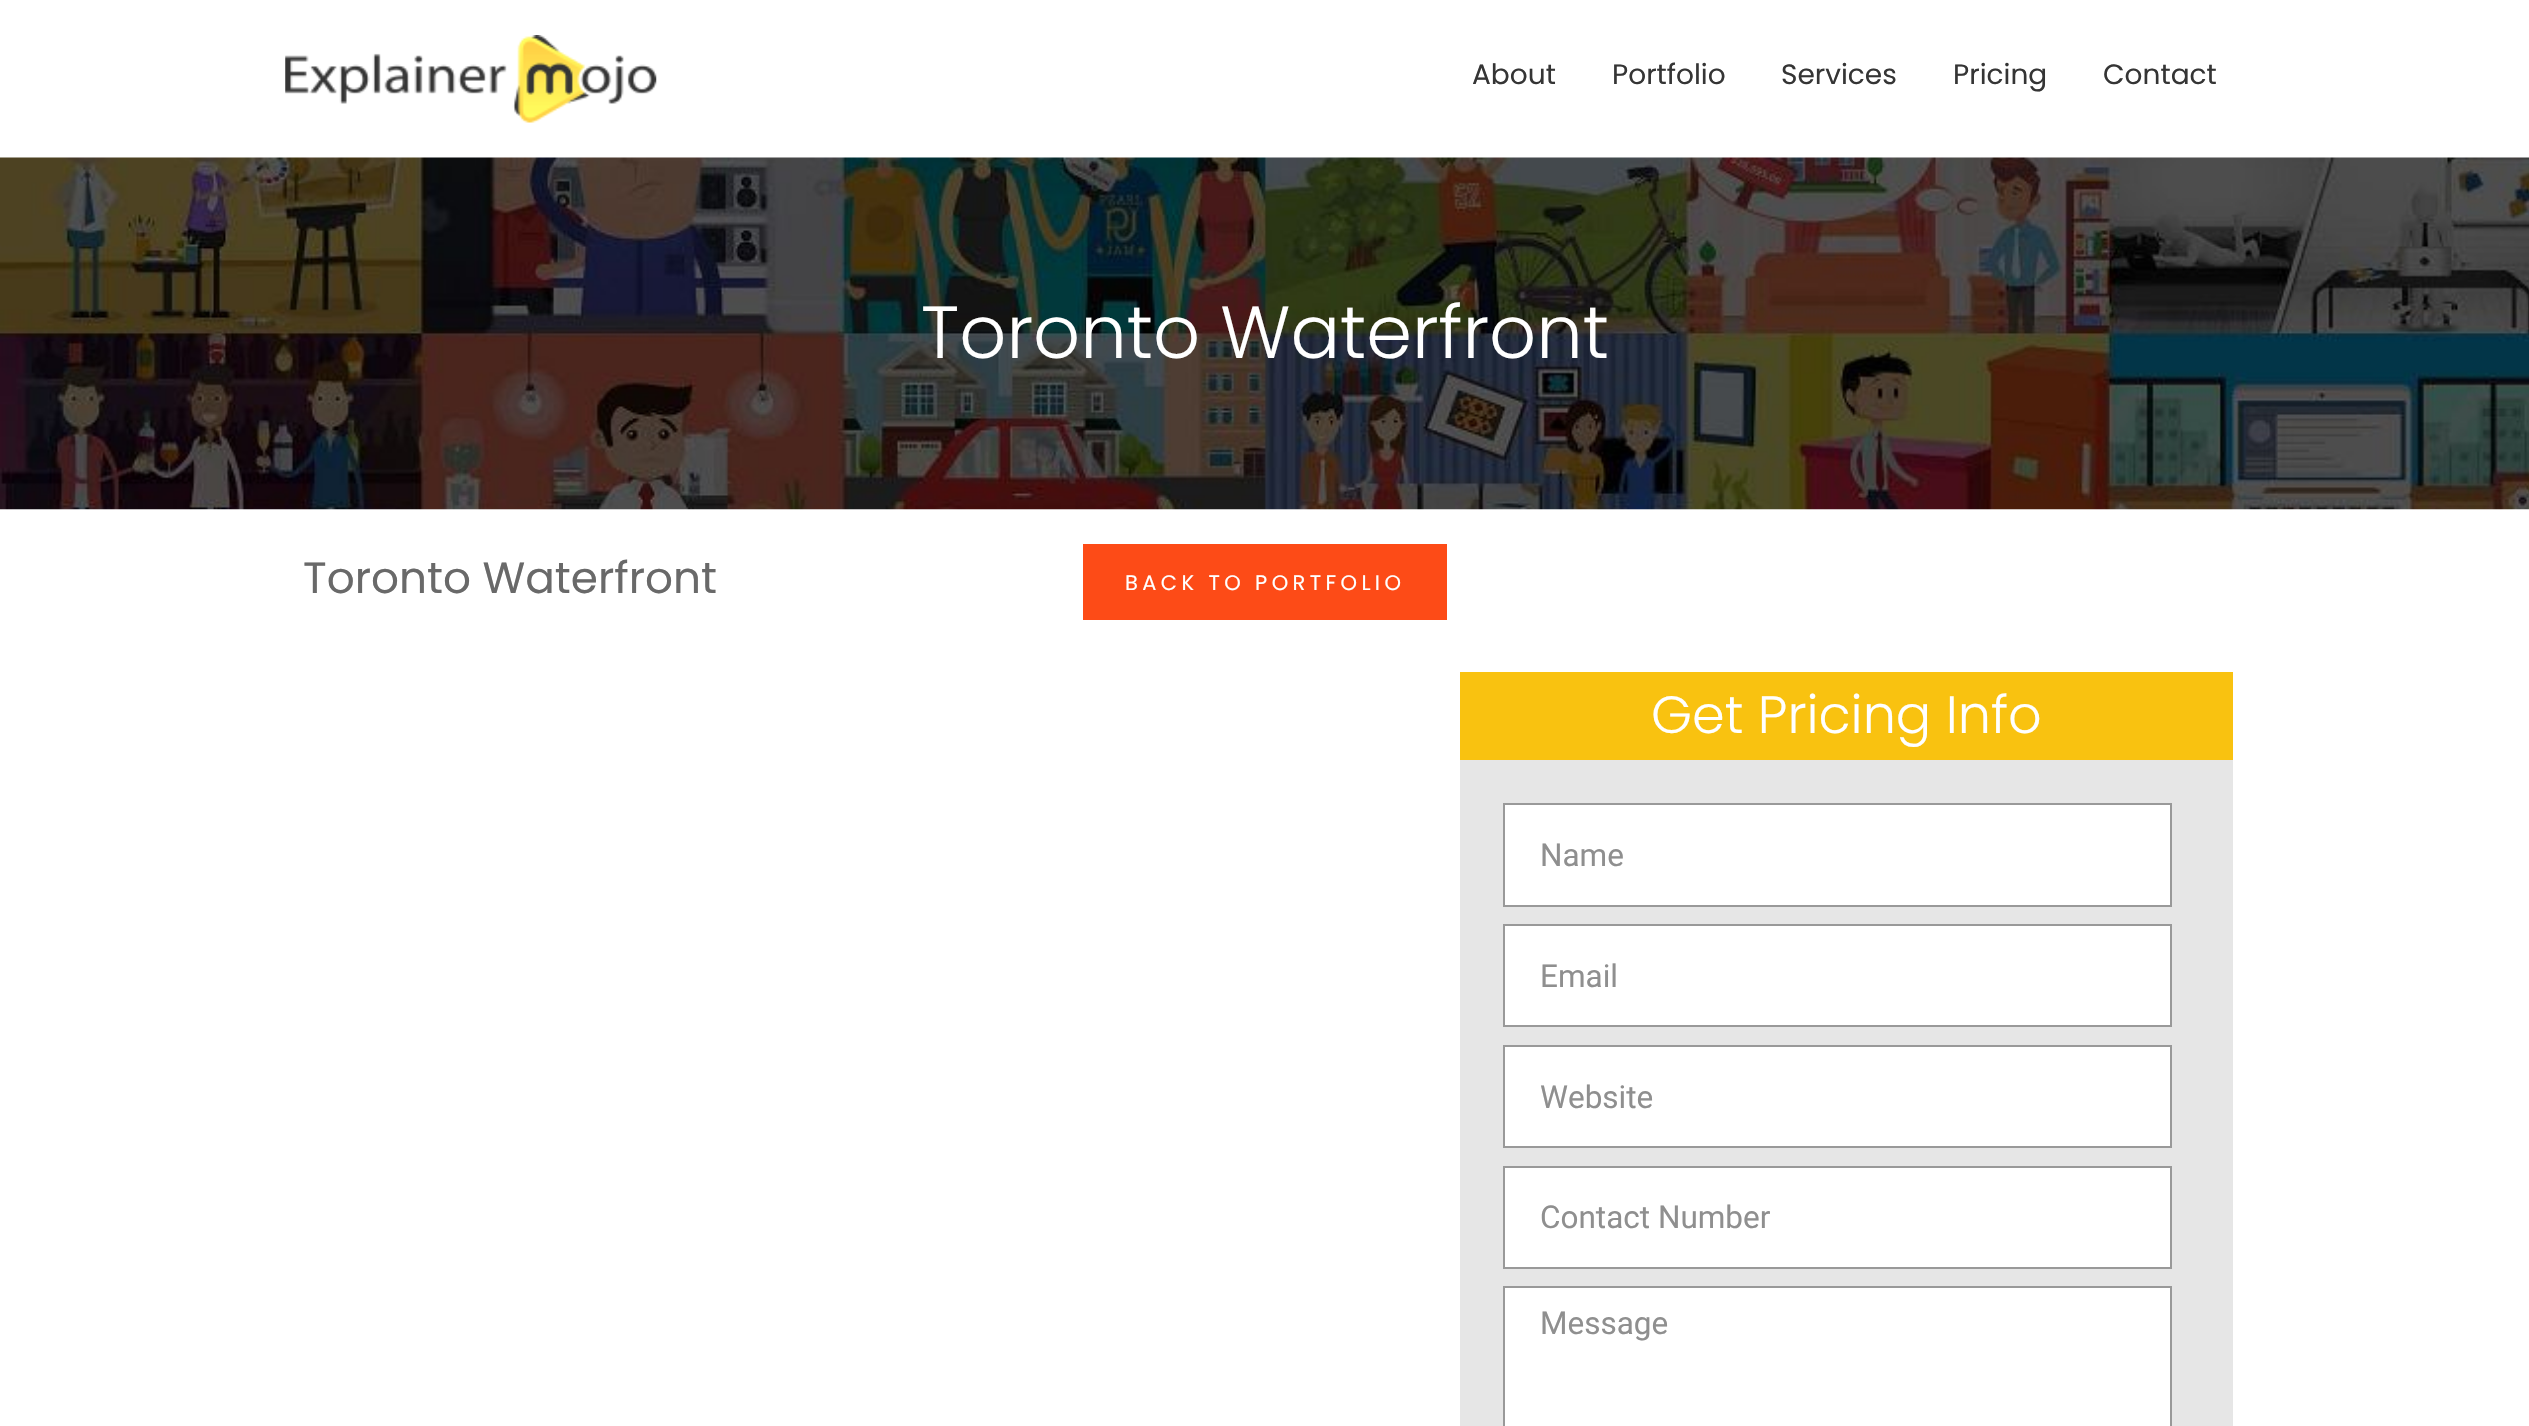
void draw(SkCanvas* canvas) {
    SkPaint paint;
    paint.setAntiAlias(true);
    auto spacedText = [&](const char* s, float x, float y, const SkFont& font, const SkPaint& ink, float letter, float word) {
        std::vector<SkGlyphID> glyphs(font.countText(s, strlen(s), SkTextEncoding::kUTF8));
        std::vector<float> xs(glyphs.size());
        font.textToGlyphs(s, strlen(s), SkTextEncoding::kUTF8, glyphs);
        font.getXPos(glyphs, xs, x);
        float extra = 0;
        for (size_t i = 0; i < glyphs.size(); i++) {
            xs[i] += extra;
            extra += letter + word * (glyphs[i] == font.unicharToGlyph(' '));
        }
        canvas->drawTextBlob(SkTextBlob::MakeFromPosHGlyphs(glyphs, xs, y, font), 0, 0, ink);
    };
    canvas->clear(0xFFFFFFFF);
    canvas->drawImageRect(SkImages::DeferredFromEncodedData(SkData::MakeFromFileName("img1.png")), SkRect::MakeXYWH(285, 35, 372, 88), SkSamplingOptions());
    SkFont font1(fontMgr->matchFamilyStyle("Poppins", SkFontStyle::Normal()), 28);
    font1.setSubpixel(true);
    paint.setColor(0xFF353535);
    canvas->drawString("About", 1472, 84, font1, paint);
    canvas->drawString("Portfolio", 1612, 84, font1, paint);
    canvas->drawString("Services", 1781, 84, font1, paint);
    canvas->drawString("Pricing", 1953, 84, font1, paint);
    canvas->drawString("Contact", 2103, 84, font1, paint);
    canvas->drawImageRect(SkImages::DeferredFromEncodedData(SkData::MakeFromFileName("img2.png")), SkRect::MakeXYWH(0, 157, 2529, 353), SkSamplingOptions());
    SkFont font2(fontMgr->matchFamilyStyle("Poppins", SkFontStyle(300, SkFontStyle::kNormal_Width, SkFontStyle::kUpright_Slant)), 73.5f);
    font2.setSubpixel(true);
    paint.setColor(0xFFFFFFFF);
    canvas->drawString("Toronto Waterfront", 921, 358, font2, paint);
    SkFont font3(fontMgr->matchFamilyStyle("Poppins", SkFontStyle::Normal()), 43.75f);
    font3.setSubpixel(true);
    paint.setColor(0xFF696969);
    canvas->drawString("Toronto Waterfront", 303, 593, font3, paint);
    paint.setColor(0xFFFD4B17);
    canvas->drawRect(SkRect::MakeXYWH(1083, 544, 364, 76), paint);
    SkFont font4(fontMgr->matchFamilyStyle("Poppins", SkFontStyle::Normal()), 21);
    font4.setSubpixel(true);
    paint.setColor(0xFFFFFFFF);
    spacedText("BACK TO PORTFOLIO", 1125, 590, font4, paint, 4.4f, 0);
    paint.setColor(0xFFF9C210);
    canvas->drawRect(SkRect::MakeXYWH(1460, 672, 773, 88), paint);
    SkFont font5(fontMgr->matchFamilyStyle("Poppins", SkFontStyle(300, SkFontStyle::kNormal_Width, SkFontStyle::kUpright_Slant)), 52.5f);
    font5.setSubpixel(true);
    paint.setColor(0xFFFFFFFF);
    canvas->drawString("Get Pricing Info", 1651, 733, font5, paint);
    paint.setColor(0xFFE6E6E6);
    canvas->drawRect(SkRect::MakeXYWH(1460, 760, 773, 666), paint);
    paint.setColor(0xFFFFFFFF);
    canvas->drawRect(SkRect::MakeXYWH(1504, 804, 667, 102), paint);
    paint.setStyle(SkPaint::kStroke_Style);
    paint.setStrokeWidth(2);
    paint.setColor(0xFF999999);
    canvas->drawRect(SkRect::MakeXYWH(1504, 804, 667, 102), paint);
    SkFont font6(fontMgr->matchFamilyStyle("Roboto", SkFontStyle::Normal()), 31.5f);
    font6.setSubpixel(true);
    paint.setStyle(SkPaint::kFill_Style);
    paint.setColor(0xFF8F8F8F);
    canvas->drawString("Name", 1540, 866, font6, paint);
    paint.setColor(0xFFFFFFFF);
    canvas->drawRect(SkRect::MakeXYWH(1504, 925, 667, 101), paint);
    paint.setStyle(SkPaint::kStroke_Style);
    paint.setColor(0xFF999999);
    canvas->drawRect(SkRect::MakeXYWH(1504, 925, 667, 101), paint);
    paint.setStyle(SkPaint::kFill_Style);
    paint.setColor(0xFF8F8F8F);
    canvas->drawString("Email", 1540, 987, font6, paint);
    paint.setColor(0xFFFFFFFF);
    canvas->drawRect(SkRect::MakeXYWH(1504, 1046, 667, 101), paint);
    paint.setStyle(SkPaint::kStroke_Style);
    paint.setColor(0xFF999999);
    canvas->drawRect(SkRect::MakeXYWH(1504, 1046, 667, 101), paint);
    paint.setStyle(SkPaint::kFill_Style);
    paint.setColor(0xFF8F8F8F);
    canvas->drawString("Website", 1540, 1108, font6, paint);
    paint.setColor(0xFFFFFFFF);
    canvas->drawRect(SkRect::MakeXYWH(1504, 1167, 667, 101), paint);
    paint.setStyle(SkPaint::kStroke_Style);
    paint.setColor(0xFF999999);
    canvas->drawRect(SkRect::MakeXYWH(1504, 1167, 667, 101), paint);
    paint.setStyle(SkPaint::kFill_Style);
    paint.setColor(0xFF8F8F8F);
    canvas->drawString("Contact Number", 1540, 1228, font6, paint);
    paint.setColor(0xFFFFFFFF);
    canvas->drawRect(SkRect::MakeXYWH(1504, 1287, 667, 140), paint);
    paint.setStyle(SkPaint::kStroke_Style);
    paint.setColor(0xFF999999);
    canvas->drawRect(SkRect::MakeXYWH(1504, 1287, 667, 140), paint);
    paint.setStyle(SkPaint::kFill_Style);
    paint.setColor(0xFF8F8F8F);
    canvas->drawString("Message", 1540, 1334, font6, paint);
}
